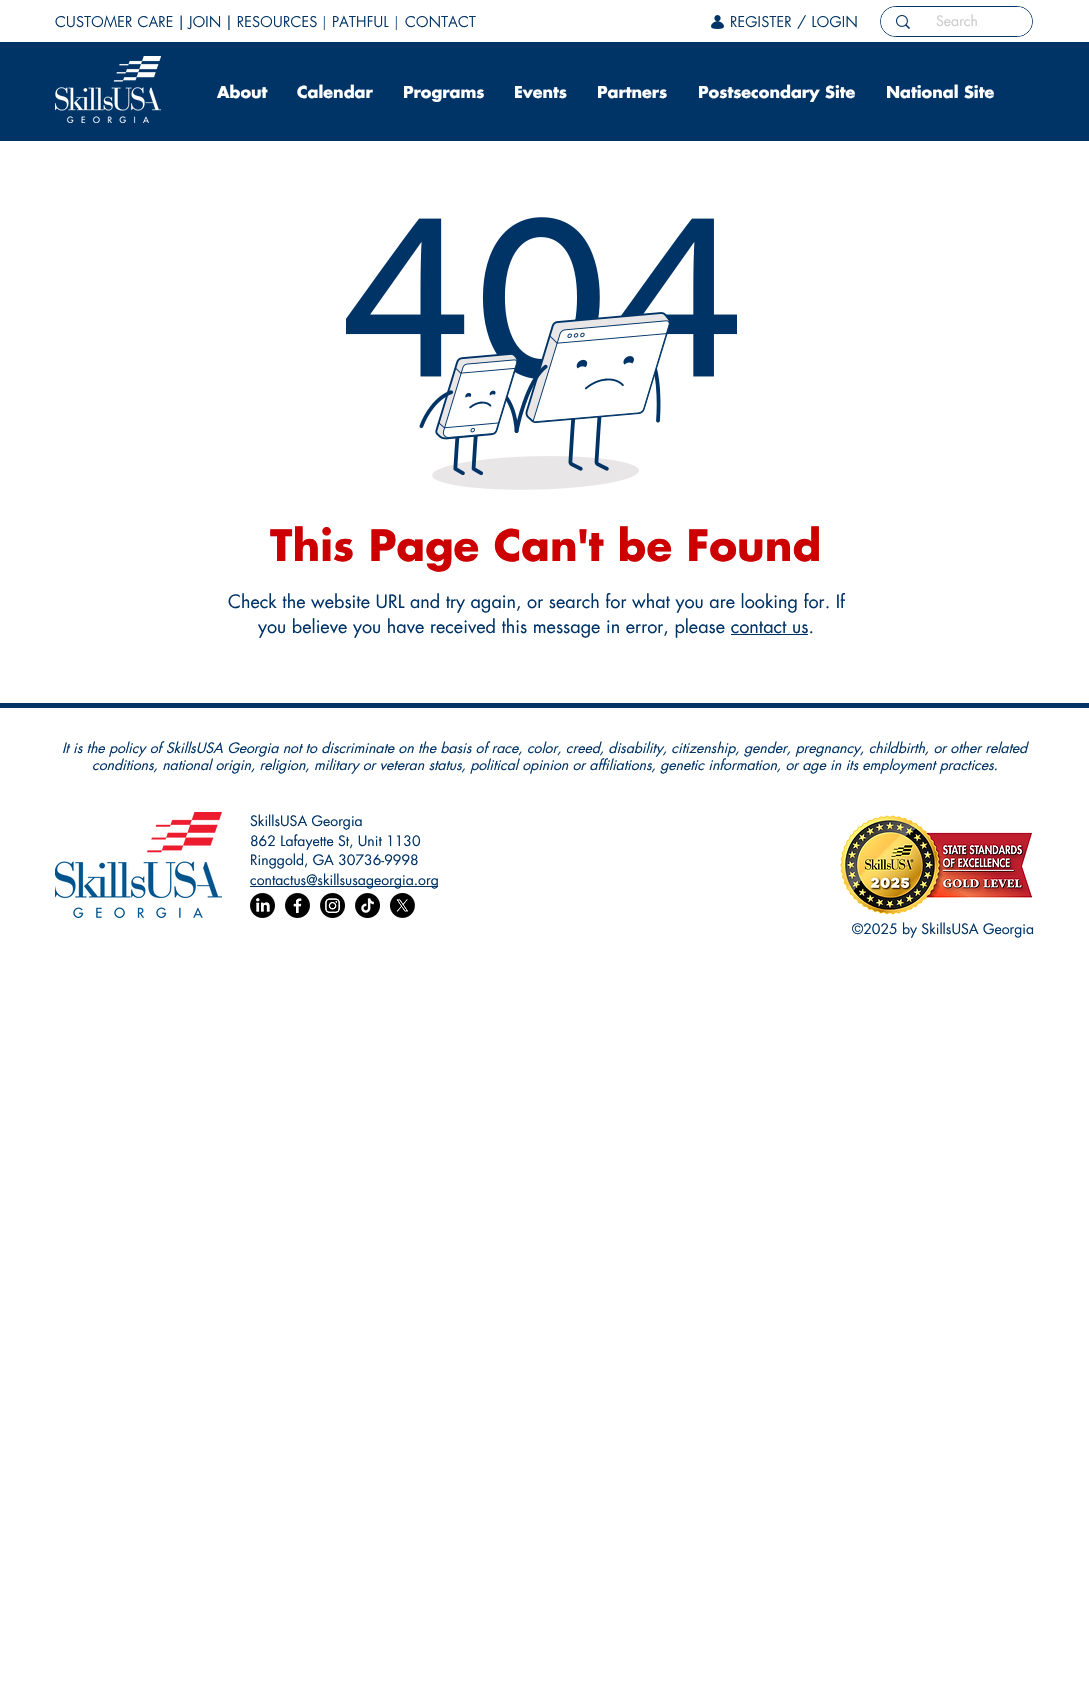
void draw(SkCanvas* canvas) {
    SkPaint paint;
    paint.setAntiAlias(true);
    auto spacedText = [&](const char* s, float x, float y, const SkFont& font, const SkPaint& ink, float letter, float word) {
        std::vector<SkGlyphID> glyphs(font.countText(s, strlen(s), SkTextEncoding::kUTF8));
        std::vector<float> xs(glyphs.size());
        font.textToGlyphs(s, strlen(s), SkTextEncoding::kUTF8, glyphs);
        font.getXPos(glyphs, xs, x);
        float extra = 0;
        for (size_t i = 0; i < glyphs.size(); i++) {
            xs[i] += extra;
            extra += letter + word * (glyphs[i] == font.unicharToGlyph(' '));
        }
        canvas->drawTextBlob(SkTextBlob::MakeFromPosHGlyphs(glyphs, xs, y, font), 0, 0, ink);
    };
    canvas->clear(0xFFFFFFFF);
    SkFont font1(fontMgr->matchFamilyStyle("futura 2", SkFontStyle::Bold()), 14);
    font1.setSubpixel(true);
    paint.setColor(0xFF003366);
    spacedText("CUSTOMER CARE | JOIN | RESOURCES", 55, 27, font1, paint, 0.7f, 0);
    SkFont font2(fontMgr->matchFamilyStyle("futura", SkFontStyle(300, SkFontStyle::kNormal_Width, SkFontStyle::kUpright_Slant)), 14);
    font2.setSubpixel(true);
    spacedText("|", 322, 27, font2, paint, 0.7f, 0);
    spacedText("PATHFUL", 332, 27, font1, paint, 0.7f, 0);
    spacedText("|", 394, 27, font2, paint, 0.7f, 0);
    spacedText("CONTACT", 405, 27, font1, paint, 0.7f, 0);
    canvas->drawImageRect(SkImages::DeferredFromEncodedData(SkData::MakeFromFileName("img1.png")), SkRect::MakeXYWH(711, 15, 13, 14), SkSamplingOptions());
    spacedText("REGISTER / LOGIN", 730, 27, font1, paint, 0.7f, 0);
    paint.setStyle(SkPaint::kStroke_Style);
    paint.setStrokeWidth(1);
    canvas->drawRoundRect(SkRect::MakeXYWH(880.5f, 6.5f, 152, 30), 15, 15, paint);
    paint.setStyle(SkPaint::kFill_Style);
    paint.setColor(0xFFFFFFFF);
    canvas->drawRoundRect(SkRect::MakeXYWH(881, 7, 151, 29), 14.5f, 14.5f, paint);
    canvas->drawImageRect(SkImages::DeferredFromEncodedData(SkData::MakeFromFileName("img2.png")), SkRect::MakeXYWH(896, 15, 14, 14), SkSamplingOptions());
    SkFont font3(fontMgr->matchFamilyStyle("Futura", SkFontStyle::Normal()), 14);
    font3.setSubpixel(true);
    paint.setColor(0xFFCCCCCC);
    canvas->drawString("Search", 936, 26, font3, paint);
    paint.setColor(0xFF003366);
    canvas->drawRect(SkRect::MakeXYWH(0, 42, 1089, 99), paint);
    canvas->drawImageRect(SkImages::DeferredFromEncodedData(SkData::MakeFromFileName("img3.png")), SkRect::MakeXYWH(55, 56, 106, 67), SkSamplingOptions());
    SkFont font4(fontMgr->matchFamilyStyle("Futura", SkFontStyle::Bold()), 16);
    font4.setSubpixel(true);
    paint.setColor(0xFFFFFFFF);
    canvas->drawString("About", 217, 98, font4, paint);
    canvas->drawString("Calendar", 297, 98, font4, paint);
    canvas->drawString("Programs", 403, 98, font4, paint);
    canvas->drawString("Events", 514, 98, font4, paint);
    canvas->drawString("Partners", 597, 98, font4, paint);
    canvas->drawString("Postsecondary Site", 698, 98, font4, paint);
    canvas->drawString("National Site", 886, 98, font4, paint);
    canvas->drawImageRect(SkImages::DeferredFromEncodedData(SkData::MakeFromFileName("img4.png")), SkRect::MakeXYWH(346, 217, 391, 273), SkSamplingOptions());
    SkFont font5(fontMgr->matchFamilyStyle("Futura", SkFontStyle::Bold()), 42);
    font5.setSubpixel(true);
    paint.setColor(0xFFCC0000);
    canvas->drawString("This Page Can't be Found", 270, 561, font5, paint);
    SkFont font6(fontMgr->matchFamilyStyle("Futura", SkFontStyle::Normal()), 18);
    font6.setSubpixel(true);
    paint.setColor(0xFF003366);
    canvas->drawString("Check the website URL and try again, or search for what you are looking for. If", 228, 608, font6, paint);
    canvas->drawString("you believe you have received this message in error, please contact us.", 258, 633, font6, paint);
    canvas->drawRect(SkRect::MakeXYWH(731, 634, 77, 1), paint);
    canvas->drawRect(SkRect::MakeXYWH(0, 703, 1089, 5), paint);
    SkFont font7(fontMgr->matchFamilyStyle("Futura", SkFontStyle::Italic()), 14);
    font7.setSubpixel(true);
    canvas->drawString("It is the policy of SkillsUSA Georgia not to discriminate on the basis of race, color, creed, disability, citizenship, gender, pregnancy, childbirth, or other related", 62, 753, font7, paint);
    canvas->drawString("conditions, national origin, religion, military or veteran status, political opinion or affiliations, genetic information, or age in its employment practices.", 92, 770, font7, paint);
    canvas->drawImageRect(SkImages::DeferredFromEncodedData(SkData::MakeFromFileName("img5.png")), SkRect::MakeXYWH(55, 812, 167, 106), SkSamplingOptions());
    canvas->drawString("SkillsUSA Georgia", 250, 826, font3, paint);
    canvas->drawString("862 Lafayette St, Unit 1130", 250, 846, font3, paint);
    canvas->drawString("Ringgold, GA 30736-9998", 250, 865, font3, paint);
    canvas->drawRect(SkRect::MakeXYWH(250, 886, 188, 1), paint);
    canvas->drawString("contactus@skillsusageorgia.org", 250, 885, font3, paint);
    canvas->drawImageRect(SkImages::DeferredFromEncodedData(SkData::MakeFromFileName("img6.png")), SkRect::MakeXYWH(840, 815, 192, 100), SkSamplingOptions());
    canvas->drawImageRect(SkImages::DeferredFromEncodedData(SkData::MakeFromFileName("img7.png")), SkRect::MakeXYWH(250, 893, 25, 25), SkSamplingOptions());
    canvas->drawImageRect(SkImages::DeferredFromEncodedData(SkData::MakeFromFileName("img8.png")), SkRect::MakeXYWH(285, 893, 25, 25), SkSamplingOptions());
    canvas->drawImageRect(SkImages::DeferredFromEncodedData(SkData::MakeFromFileName("img9.png")), SkRect::MakeXYWH(320, 893, 25, 25), SkSamplingOptions());
    canvas->drawImageRect(SkImages::DeferredFromEncodedData(SkData::MakeFromFileName("img10.png")), SkRect::MakeXYWH(355, 893, 25, 25), SkSamplingOptions());
    canvas->drawImageRect(SkImages::DeferredFromEncodedData(SkData::MakeFromFileName("img11.png")), SkRect::MakeXYWH(390, 893, 25, 25), SkSamplingOptions());
    canvas->drawString("©2025 by SkillsUSA Georgia", 852, 934, font3, paint);
}
